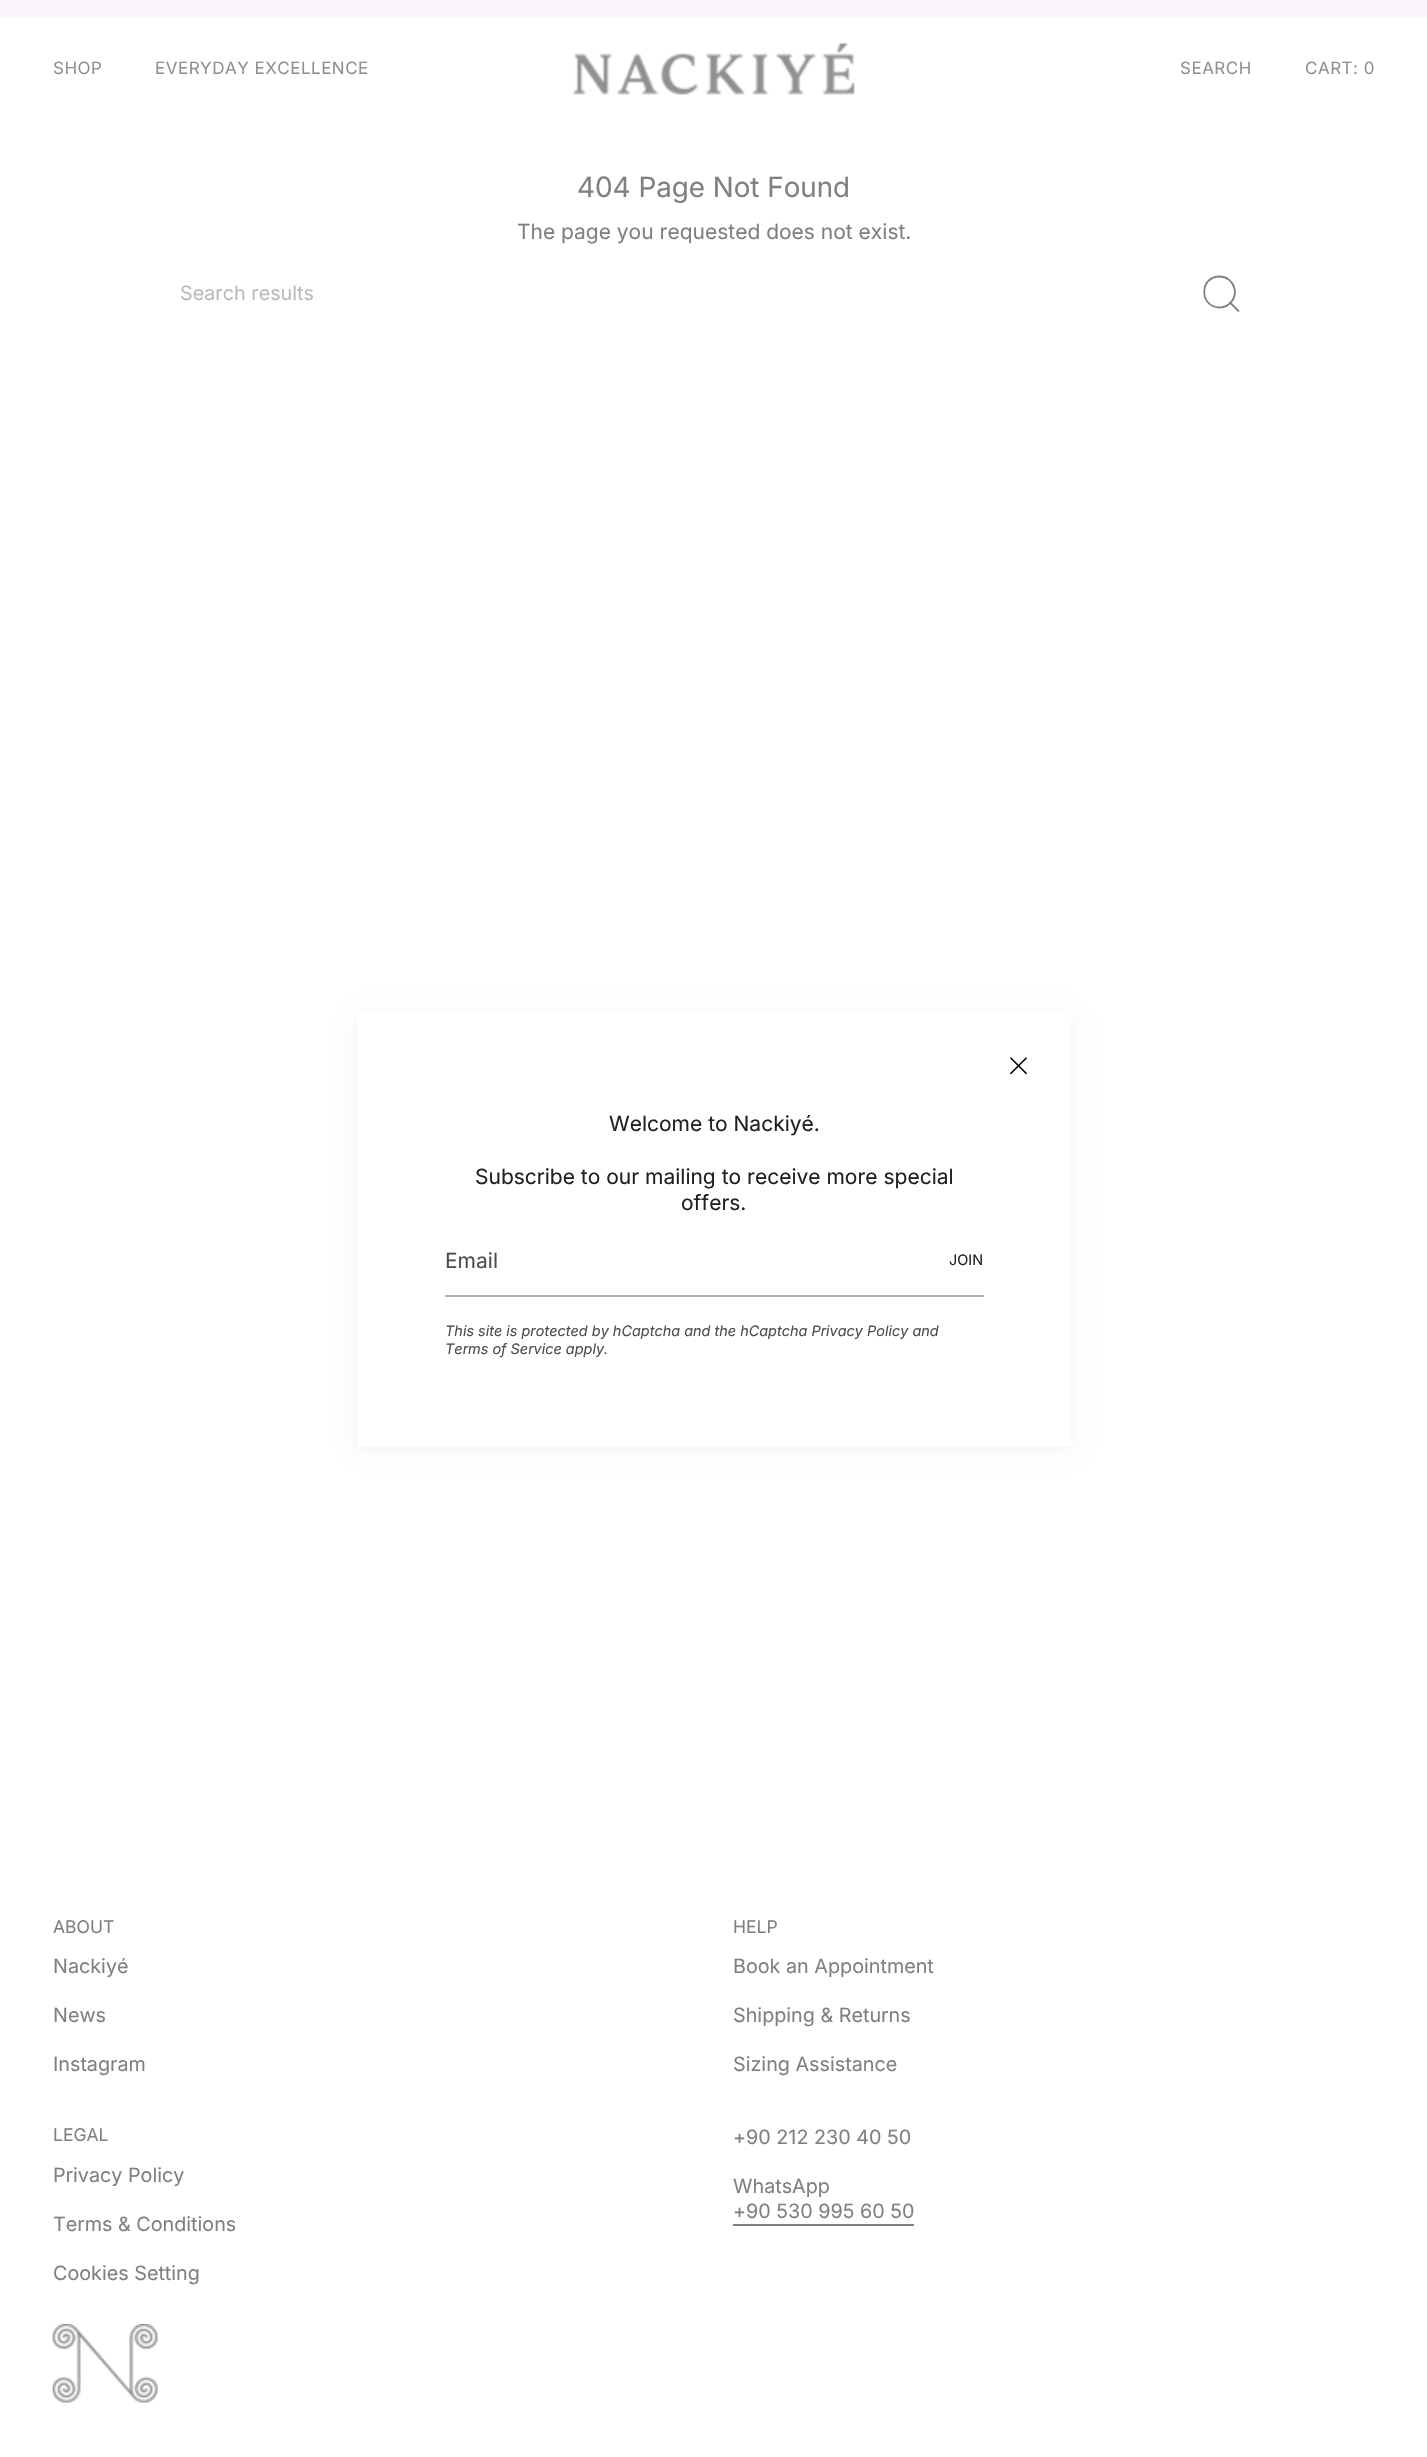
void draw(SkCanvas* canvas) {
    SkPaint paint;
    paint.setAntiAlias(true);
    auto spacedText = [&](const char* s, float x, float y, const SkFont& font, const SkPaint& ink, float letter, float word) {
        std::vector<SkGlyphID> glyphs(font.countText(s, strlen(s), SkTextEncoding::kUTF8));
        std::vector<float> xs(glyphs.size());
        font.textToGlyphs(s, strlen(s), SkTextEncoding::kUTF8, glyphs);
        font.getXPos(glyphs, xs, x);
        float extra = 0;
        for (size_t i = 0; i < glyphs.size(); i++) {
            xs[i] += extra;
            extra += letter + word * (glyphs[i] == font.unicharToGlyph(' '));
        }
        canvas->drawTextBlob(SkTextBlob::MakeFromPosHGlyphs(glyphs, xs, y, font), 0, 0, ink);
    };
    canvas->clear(0xFFFFFFFF);
    paint.setColor(0xFFFCF4FC);
    canvas->drawRect(SkRect::MakeXYWH(0, 0, 1427, 18), paint);
    SkFont font1(fontMgr->matchFamilyStyle("Inter", SkFontStyle::Normal()), 17);
    font1.setSubpixel(true);
    paint.setColor(0xFF909090);
    spacedText("SHOP", 53, 74, font1, paint, 0.5f, 0);
    spacedText("EVERYDAY EXCELLENCE", 155, 74, font1, paint, 0.5f, 0);
    canvas->drawImageRect(SkImages::DeferredFromEncodedData(SkData::MakeFromFileName("img1.png")), SkRect::MakeXYWH(573, 42, 282, 53), SkSamplingOptions());
    spacedText("SEARCH", 1180, 74, font1, paint, 0.5f, 0);
    spacedText("CART: 0", 1305, 74, font1, paint, 0.5f, 0);
    SkFont font2(fontMgr->matchFamilyStyle("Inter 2", SkFontStyle::Normal()), 28);
    font2.setSubpixel(true);
    paint.setColor(0xFF808080);
    canvas->drawString("404 Page Not Found", 577, 197, font2, paint);
    SkFont font3(fontMgr->matchFamilyStyle("Inter", SkFontStyle::Normal()), 21);
    font3.setSubpixel(true);
    canvas->drawString("The page you requested does not exist.", 517, 239, font3, paint);
    SkFont font4(fontMgr->matchFamilyStyle("Inter", SkFontStyle::Normal()), 19.75f);
    font4.setSubpixel(true);
    paint.setColor(0xFFBABABA);
    canvas->drawString("Search results", 180, 300, font4, paint);
    paint.setStyle(SkPaint::kStroke_Style);
    paint.setStrokeWidth(1.8f);
    paint.setColor(0xFF808080);
    canvas->drawPath(SkPathBuilder().moveTo(1219.5f, 276.5f).cubicTo(1234, 276.5f, 1241, 295.5f, 1228.5f, 304.5f).cubicTo(1226, 306.5f, 1222.5f, 307.5f, 1219, 307.5f).cubicTo(1199, 306.5f, 1199.5f, 276.5f, 1219.5f, 276.5f).close().moveTo(1230.5f, 303).lineTo(1239, 311.5f).detach(), paint);
    paint.setStyle(SkPaint::kFill_Style);
    paint.setColor(0x0D000000);
    paint.setMaskFilter(SkMaskFilter::MakeBlur(kNormal_SkBlurStyle, 9));
    canvas->drawRect(SkRect::MakeXYWH(357, 1017, 714, 432), paint);
    paint.setMaskFilter(nullptr);
    paint.setColor(0xFFFFFFFF);
    canvas->drawRect(SkRect::MakeXYWH(357, 1013, 714, 433), paint);
    canvas->drawImageRect(SkImages::DeferredFromEncodedData(SkData::MakeFromFileName("img2.png")), SkRect::MakeXYWH(1010, 1057, 17, 18), SkSamplingOptions());
    paint.setColor(0xFF212121);
    canvas->drawString("Welcome to Nackiyé.", 609, 1131, font3, paint);
    canvas->drawString("Subscribe to our mailing to receive more special", 475, 1184, font3, paint);
    canvas->drawString("offers.", 681, 1210, font3, paint);
    paint.setColor(0xFFB1B1B1);
    canvas->drawRect(SkRect::MakeXYWH(445, 1295, 539, 2), paint);
    paint.setColor(0xFF4D4D4D);
    canvas->drawString("Email", 445, 1268, font3, paint);
    SkFont font5(fontMgr->matchFamilyStyle("Inter", SkFontStyle::Normal()), 14.45f);
    font5.setSubpixel(true);
    paint.setColor(0xFF212121);
    canvas->drawString("JOIN", 949, 1265, font5, paint);
    SkFont font6(fontMgr->matchFamilyStyle("Inter", SkFontStyle::Italic()), 14.45f);
    font6.setSubpixel(true);
    paint.setColor(0xFF4D4D4D);
    canvas->drawString("This site is protected by hCaptcha and the hCaptcha Privacy Policy and", 445, 1336, font6, paint);
    canvas->drawString("Terms of Service apply.", 445, 1354, font6, paint);
    SkFont font7(fontMgr->matchFamilyStyle("Inter", SkFontStyle::Normal()), 17.5f);
    font7.setSubpixel(true);
    paint.setColor(0xFF808080);
    canvas->drawString("ABOUT", 53, 1933, font7, paint);
    canvas->drawString("Nackiyé", 53, 1973, font4, paint);
    canvas->drawString("News", 53, 2022, font4, paint);
    canvas->drawString("Instagram", 53, 2071, font4, paint);
    canvas->drawString("HELP", 733, 1933, font7, paint);
    canvas->drawString("Book an Appointment", 733, 1973, font4, paint);
    canvas->drawString("Shipping & Returns", 733, 2022, font4, paint);
    canvas->drawString("Sizing Assistance", 733, 2071, font4, paint);
    canvas->drawString("LEGAL", 53, 2141, font7, paint);
    canvas->drawString("Privacy Policy", 53, 2182, font4, paint);
    canvas->drawString("Terms & Conditions", 53, 2231, font4, paint);
    canvas->drawString("Cookies Setting", 53, 2280, font4, paint);
    canvas->drawString("+90 212 230 40 50", 733, 2144, font4, paint);
    canvas->drawString("WhatsApp", 733, 2193, font4, paint);
    canvas->drawString("+90 530 995 60 50", 733, 2218, font4, paint);
    canvas->drawRect(SkRect::MakeXYWH(733, 2224, 181, 2), paint);
    canvas->drawImageRect(SkImages::DeferredFromEncodedData(SkData::MakeFromFileName("img3.png")), SkRect::MakeXYWH(52, 2323, 106, 80), SkSamplingOptions());
}
